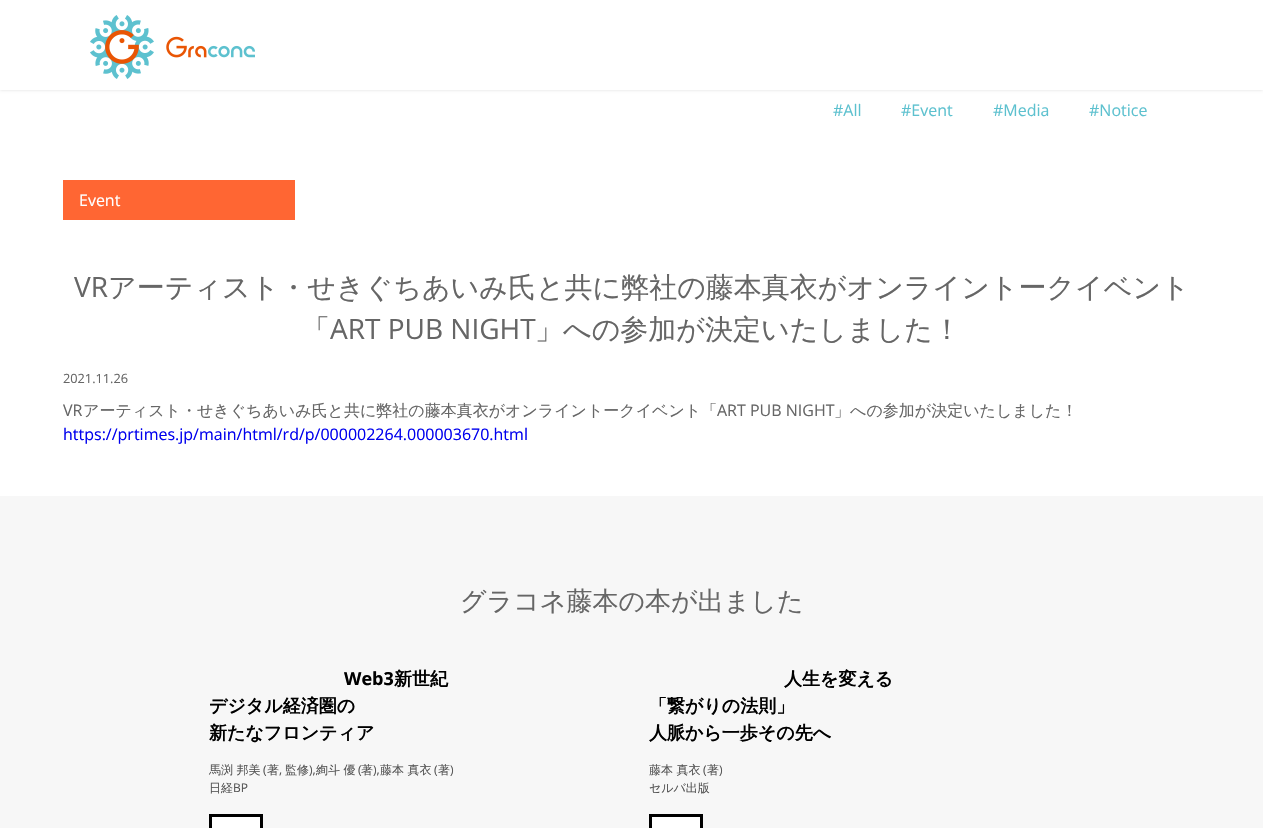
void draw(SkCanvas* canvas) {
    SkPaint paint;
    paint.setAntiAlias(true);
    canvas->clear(0xFFFFFFFF);
    paint.setColor(0xFFDDDDDD);
    paint.setMaskFilter(SkMaskFilter::MakeBlur(kNormal_SkBlurStyle, 1.5f));
    canvas->drawRect(SkRect::MakeXYWH(0, 0, 1263, 90), paint);
    paint.setMaskFilter(nullptr);
    paint.setColor(0xFFFFFFFF);
    canvas->drawRect(SkRect::MakeXYWH(0, 0, 1263, 90), paint);
    canvas->drawImageRect(SkImages::DeferredFromEncodedData(SkData::MakeFromFileName("img1.png")), SkRect::MakeXYWH(90, 15, 165, 64), SkSamplingOptions());
    SkFont font1(fontMgr->matchFamilyStyle("Open Sans", SkFontStyle::Normal()), 16);
    font1.setSubpixel(true);
    paint.setColor(0xFF5DC1CF);
    canvas->drawString("#All", 833, 116, font1, paint);
    canvas->drawString("#Event", 901, 116, font1, paint);
    canvas->drawString("#Media", 993, 116, font1, paint);
    canvas->drawString("#Notice", 1089, 116, font1, paint);
    paint.setColor(0xFFFF6633);
    canvas->drawRect(SkRect::MakeXYWH(63, 180, 232, 40), paint);
    paint.setColor(0xFFFFFFFF);
    canvas->drawString("Event", 79, 206, font1, paint);
    SkFont font2(fontMgr->matchFamilyStyle("Open Sans", SkFontStyle::Normal()), 28);
    font2.setSubpixel(true);
    paint.setColor(0xFF666666);
    canvas->drawString("VR", 74, 297, font2, paint);
    SkFont font3(fontMgr->matchFamilyStyle("WenQuanYi Zen Hei", SkFontStyle(500, SkFontStyle::kNormal_Width, SkFontStyle::kUpright_Slant)), 28);
    font3.setSubpixel(true);
    canvas->drawString("アーティスト・せきぐちあいみ氏と共に弊社の藤本真衣がオンライントークイベント", 108, 297, font3, paint);
    canvas->drawString("「", 302, 339, font3, paint);
    canvas->drawString("ART PUB NIGHT", 330, 339, font2, paint);
    canvas->drawString("」への参加が決定いたしました！", 535, 339, font3, paint);
    SkFont font4(fontMgr->matchFamilyStyle("Open Sans", SkFontStyle::Normal()), 12.75f);
    font4.setSubpixel(true);
    canvas->drawString("2021.11.26", 63, 383, font4, paint);
    canvas->drawString("VR", 63, 416, font1, paint);
    SkFont font5(fontMgr->matchFamilyStyle("WenQuanYi Zen Hei", SkFontStyle(500, SkFontStyle::kNormal_Width, SkFontStyle::kUpright_Slant)), 16);
    font5.setSubpixel(true);
    canvas->drawString("アーティスト・せきぐちあいみ氏と共に弊社の藤本真衣がオンライントークイベント「", 83, 416, font5, paint);
    canvas->drawString("ART PUB NIGHT", 717, 416, font1, paint);
    canvas->drawString("」への参加が決定いたしました！", 834, 416, font5, paint);
    paint.setColor(0xFF0000EE);
    canvas->drawString("https://prtimes.jp/main/html/rd/p/000002264.000003670.html", 63, 440, font1, paint);
    paint.setColor(0xFFF7F7F7);
    canvas->drawRect(SkRect::MakeXYWH(0, 496, 1263, 332), paint);
    SkFont font6(fontMgr->matchFamilyStyle("WenQuanYi Zen Hei", SkFontStyle(500, SkFontStyle::kNormal_Width, SkFontStyle::kUpright_Slant)), 26);
    font6.setSubpixel(true);
    paint.setColor(0xFF666666);
    canvas->drawString("グラコネ藤本の本が出ました", 460, 610, font6, paint);
    SkFont font7(fontMgr->matchFamilyStyle("Open Sans", SkFontStyle::Bold()), 18);
    font7.setSubpixel(true);
    paint.setColor(0xFF000000);
    canvas->drawString("Web3", 344, 685, font7, paint);
    SkFont font8(fontMgr->matchFamilyStyle("WenQuanYi Zen Hei", SkFontStyle::Bold()), 18);
    font8.setSubpixel(true);
    canvas->drawString("新世紀", 394, 685, font8, paint);
    canvas->drawString("デジタル経済圏の", 209, 712, font8, paint);
    canvas->drawString("新たなフロンティア", 209, 739, font8, paint);
    SkFont font9(fontMgr->matchFamilyStyle("WenQuanYi Zen Hei", SkFontStyle(500, SkFontStyle::kNormal_Width, SkFontStyle::kUpright_Slant)), 12);
    font9.setSubpixel(true);
    paint.setColor(0xFF555555);
    canvas->drawString("馬渕 邦美", 209, 774, font9, paint);
    SkFont font10(fontMgr->matchFamilyStyle("Open Sans", SkFontStyle::Normal()), 12);
    font10.setSubpixel(true);
    canvas->drawString("(", 263, 774, font10, paint);
    canvas->drawString("著", 267, 774, font9, paint);
    canvas->drawString(",", 279, 774, font10, paint);
    canvas->drawString("監修", 285, 774, font9, paint);
    canvas->drawString("),", 309, 774, font10, paint);
    canvas->drawString("絢斗 優", 316, 774, font9, paint);
    canvas->drawString("(", 358, 774, font10, paint);
    canvas->drawString("著", 361, 774, font9, paint);
    canvas->drawString("),", 373, 774, font10, paint);
    canvas->drawString("藤本 真衣", 380, 774, font9, paint);
    canvas->drawString("(", 434, 774, font10, paint);
    canvas->drawString("著", 438, 774, font9, paint);
    canvas->drawString(")", 450, 774, font10, paint);
    canvas->drawString("日経", 209, 792, font9, paint);
    canvas->drawString("BP", 233, 792, font10, paint);
    paint.setColor(0xFFFFFFFF);
    canvas->drawRect(SkRect::MakeXYWH(210.5f, 815.5f, 51, 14), paint);
    paint.setStyle(SkPaint::kStroke_Style);
    paint.setStrokeWidth(3);
    paint.setColor(0xFF000000);
    canvas->drawRect(SkRect::MakeXYWH(210.5f, 815.5f, 51, 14), paint);
    paint.setStyle(SkPaint::kFill_Style);
    canvas->drawString("人生を変える", 784, 685, font8, paint);
    canvas->drawString("「繋がりの法則」", 649, 712, font8, paint);
    canvas->drawString("人脈から一歩その先へ", 649, 739, font8, paint);
    paint.setColor(0xFF555555);
    canvas->drawString("藤本 真衣", 649, 774, font9, paint);
    canvas->drawString("(", 703, 774, font10, paint);
    canvas->drawString("著", 707, 774, font9, paint);
    canvas->drawString(")", 719, 774, font10, paint);
    canvas->drawString("セルバ出版", 649, 792, font9, paint);
    paint.setColor(0xFFFFFFFF);
    canvas->drawRect(SkRect::MakeXYWH(650.5f, 815.5f, 51, 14), paint);
    paint.setStyle(SkPaint::kStroke_Style);
    paint.setColor(0xFF000000);
    canvas->drawRect(SkRect::MakeXYWH(650.5f, 815.5f, 51, 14), paint);
}
